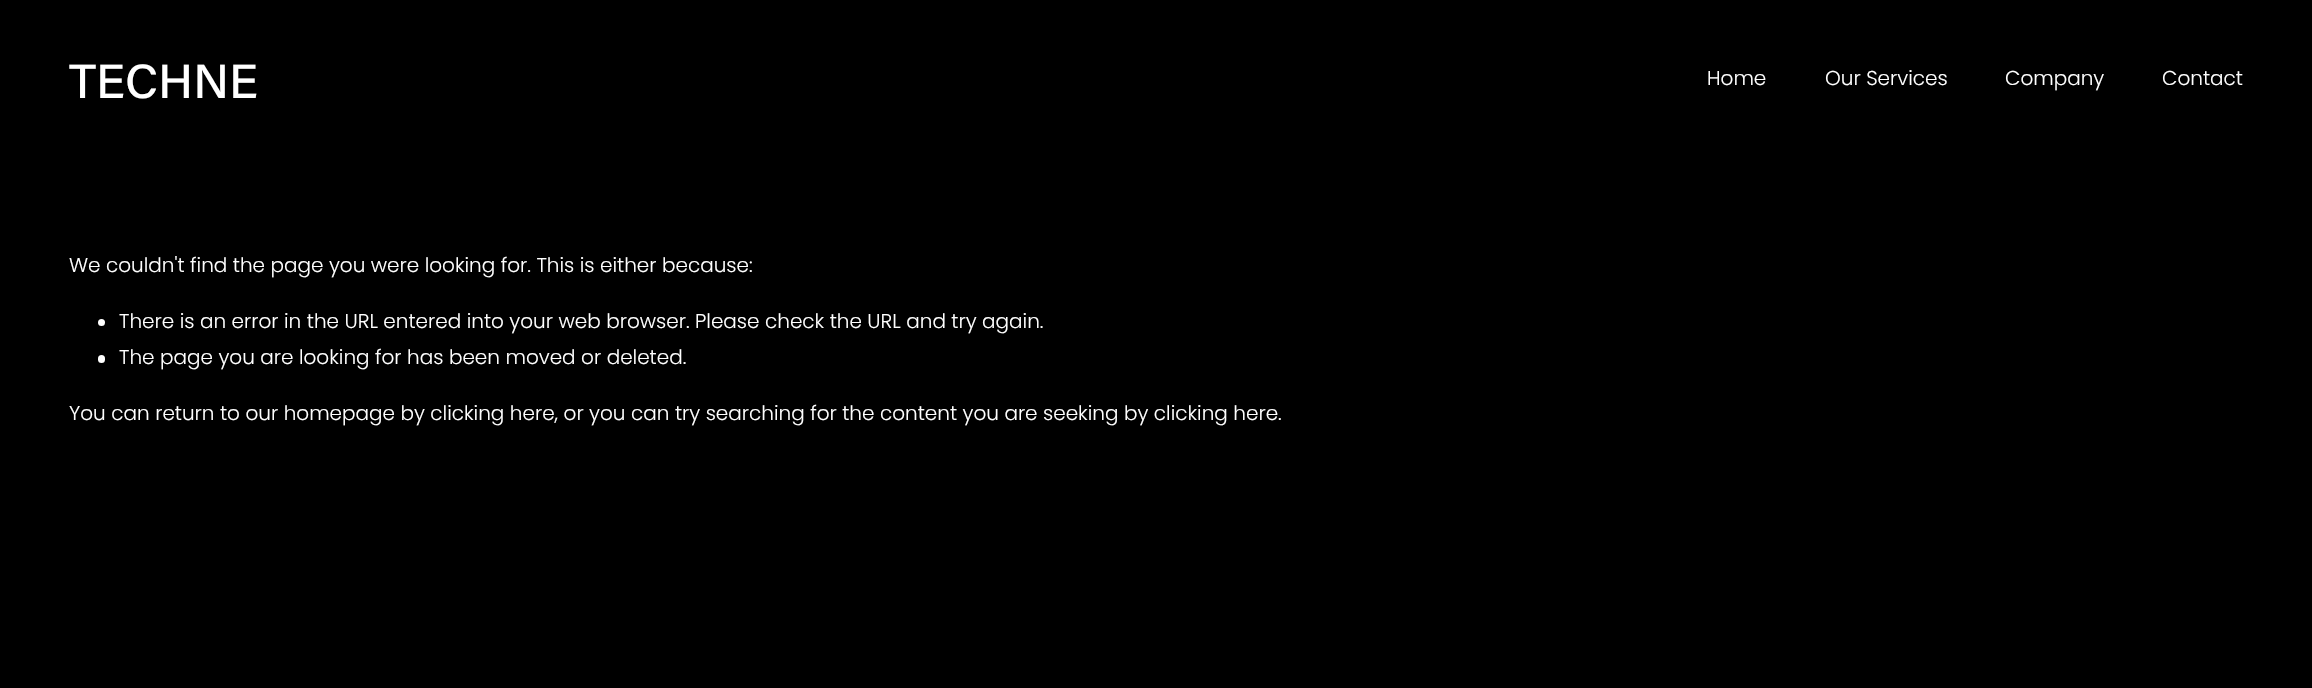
void draw(SkCanvas* canvas) {
    SkPaint paint;
    paint.setAntiAlias(true);
    canvas->clear(0xFF000000);
    SkFont font1(fontMgr->matchFamilyStyle("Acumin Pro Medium", SkFontStyle(500, SkFontStyle::kNormal_Width, SkFontStyle::kUpright_Slant)), 48);
    font1.setSubpixel(true);
    paint.setColor(0xFFFFFFFF);
    canvas->drawString("TECHNE", 69, 98, font1, paint);
    SkFont font2(fontMgr->matchFamilyStyle("Poppins", SkFontStyle(300, SkFontStyle::kNormal_Width, SkFontStyle::kUpright_Slant)), 20);
    font2.setSubpixel(true);
    canvas->drawString("Home", 1707, 85, font2, paint);
    canvas->drawString("Our Services", 1825, 85, font2, paint);
    canvas->drawString("Company", 2005, 85, font2, paint);
    canvas->drawString("Contact", 2162, 85, font2, paint);
    canvas->drawString("We couldn't find the page you were looking for. This is either because:", 69, 272, font2, paint);
    canvas->drawCircle(101.5f, 322.5f, 3.5f, paint);
    canvas->drawString("There is an error in the URL entered into your web browser. Please check the URL and try again.", 119, 328, font2, paint);
    canvas->drawRoundRect(SkRect::MakeXYWH(98, 355, 7, 8), 3.5f, 3.5f, paint);
    canvas->drawString("The page you are looking for has been moved or deleted.", 119, 364, font2, paint);
    canvas->drawString("You can return to our homepage by clicking here, or you can try searching for the content you are seeking by clicking here.", 69, 420, font2, paint);
}
